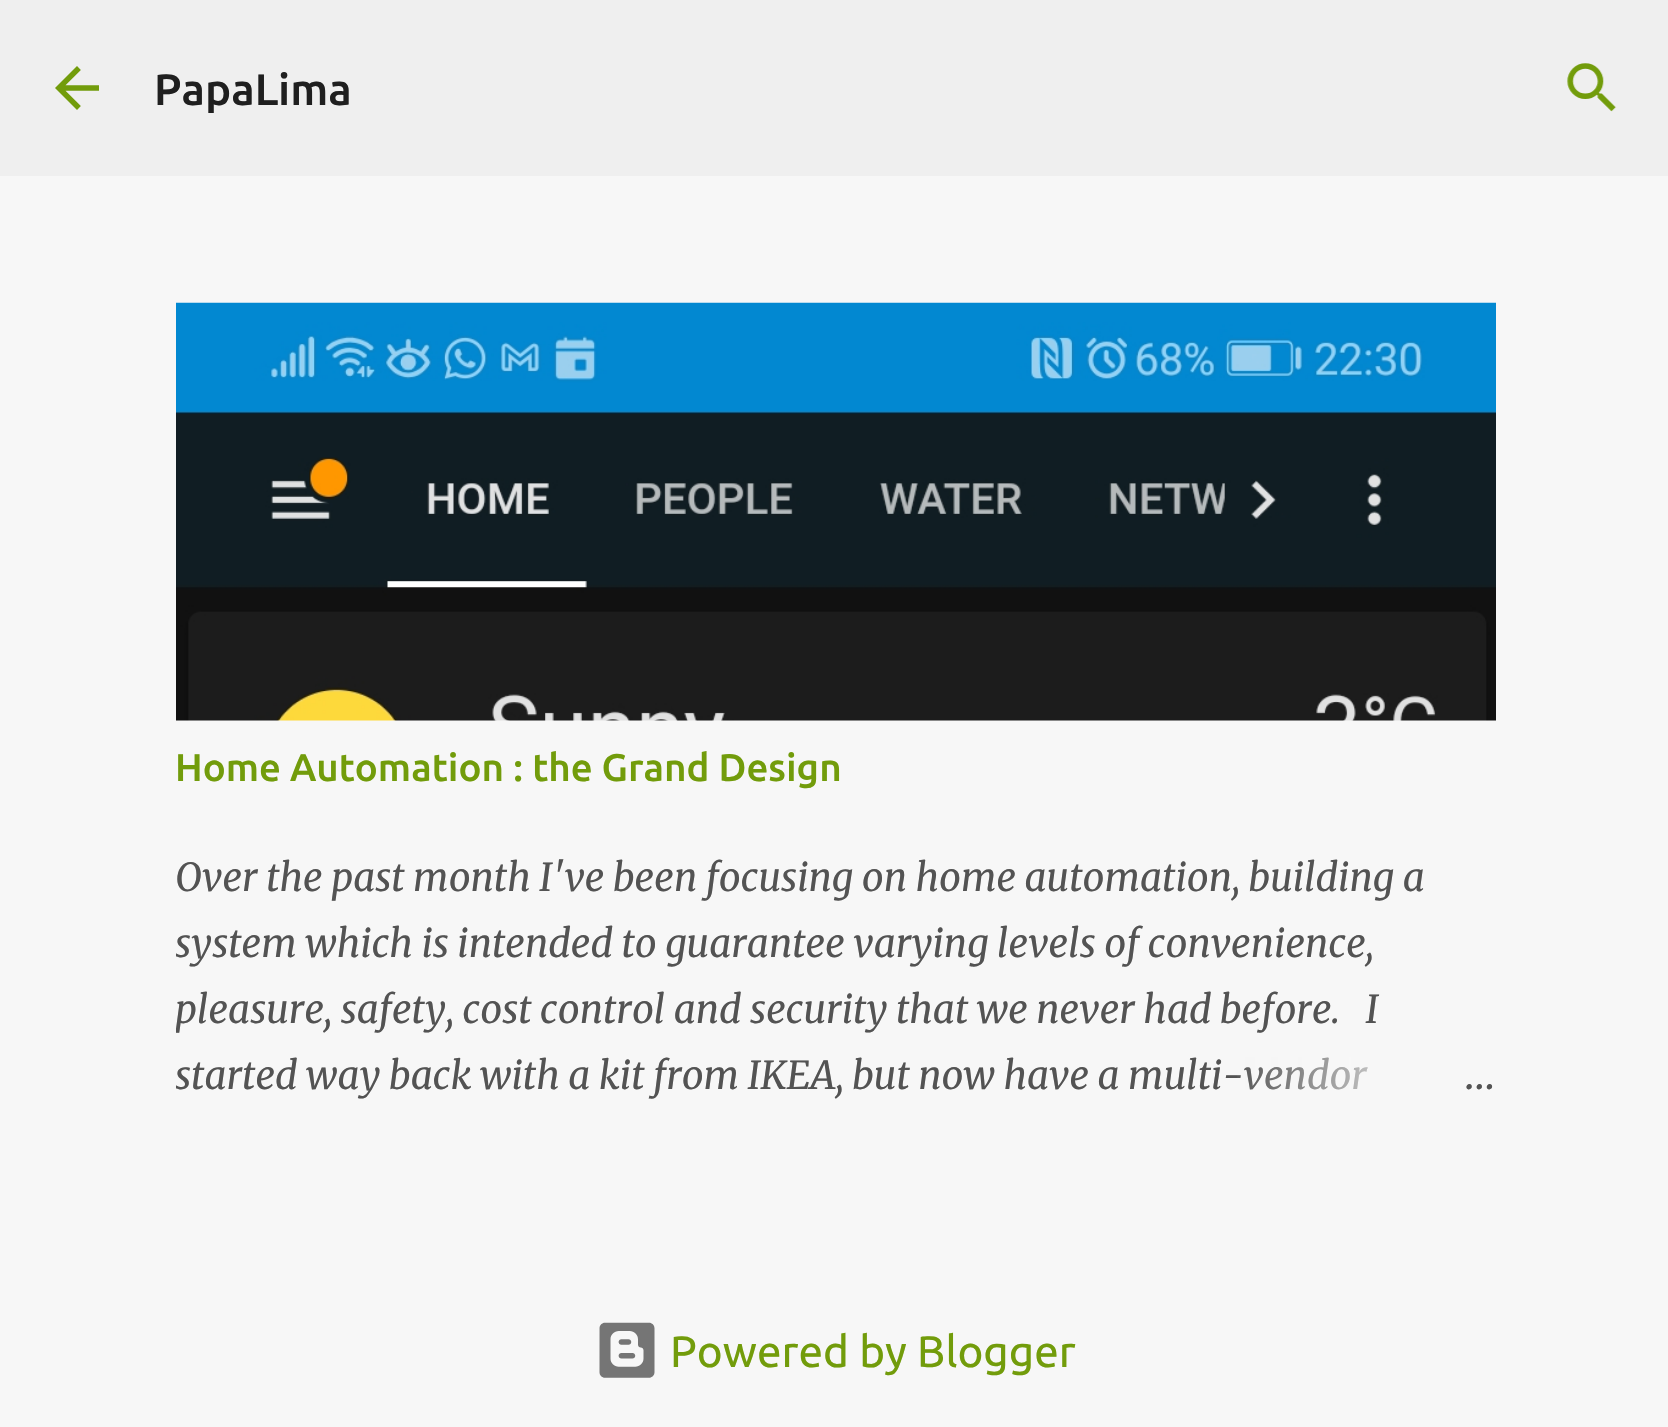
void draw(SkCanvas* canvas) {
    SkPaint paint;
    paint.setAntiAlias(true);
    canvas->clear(0xFFF7F7F7);
    paint.setColor(0xFFEFEFEF);
    canvas->drawRect(SkRect::MakeXYWH(0, 0, 1668, 176), paint);
    canvas->drawImageRect(SkImages::DeferredFromEncodedData(SkData::MakeFromFileName("img1.png")), SkRect::MakeXYWH(55, 66, 44, 44), SkSamplingOptions());
    canvas->save();
    canvas->clipRect(SkRect::MakeXYWH(154, 63, 1361, 50));
    SkFont font1(fontMgr->matchFamilyStyle("Ubuntu", SkFontStyle(500, SkFontStyle::kNormal_Width, SkFontStyle::kUpright_Slant)), 44);
    font1.setSubpixel(true);
    paint.setColor(0xFF1F1F1F);
    canvas->drawString("PapaLima", 154, 105, font1, paint);
    canvas->restore();
    canvas->drawImageRect(SkImages::DeferredFromEncodedData(SkData::MakeFromFileName("img2.png")), SkRect::MakeXYWH(1567, 63, 50, 49), SkSamplingOptions());
    canvas->drawImageRect(SkImages::DeferredFromEncodedData(SkData::MakeFromFileName("img3.png")), SkRect::MakeXYWH(176, 302, 1320, 419), SkSamplingOptions());
    SkFont font2(fontMgr->matchFamilyStyle("Ubuntu", SkFontStyle(500, SkFontStyle::kNormal_Width, SkFontStyle::kUpright_Slant)), 38.5f);
    font2.setSubpixel(true);
    paint.setColor(0xFF729C0B);
    canvas->drawString("Home Automation : the Grand Design", 175, 781, font2, paint);
    SkFont font3(fontMgr->matchFamilyStyle("Merriweather", SkFontStyle::Italic()), 38.5f);
    font3.setSubpixel(true);
    paint.setColor(0xFF535353);
    canvas->drawString("Over the past month I've been focusing on home automation, building a", 175, 891, font3, paint);
    canvas->save();
    canvas->clipRect(SkRect::MakeXYWH(176, 844, 1320, 264));
    canvas->drawString("system which is intended to guarantee varying levels of convenience,", 175, 957, font3, paint);
    canvas->drawString("pleasure, safety, cost control and security that we never had before.   I", 175, 1023, font3, paint);
    canvas->drawString("started way back with a kit from IKEA, but now have a multi-vendor", 175, 1089, font3, paint);
    canvas->restore();
    {
        const SkColor colors[] = {0xFFF7F7F7, 0xFFF7F7F7, 0x00F7F7F7};
        const float stops[] = {0, 0.2f, 1};
        const SkPoint ends[] = {{1496, 1075}, {1232, 1075}};
        paint.setShader(SkGradientShader::MakeLinear(ends, colors, stops, 3, SkTileMode::kClamp));
        paint.setAlpha(255);
    }
    canvas->drawRect(SkRect::MakeXYWH(1237, 1057, 130, 33), paint);
    SkFont font4(fontMgr->matchFamilyStyle("Merriweather", SkFontStyle(300, SkFontStyle::kNormal_Width, SkFontStyle::kUpright_Slant)), 38.5f);
    font4.setSubpixel(true);
    paint.setShader(nullptr);
    paint.setColor(0xFF535353);
    canvas->drawString("…", 1464, 1089, font4, paint);
    canvas->drawImageRect(SkImages::DeferredFromEncodedData(SkData::MakeFromFileName("img4.png")), SkRect::MakeXYWH(599, 1322, 56, 56), SkSamplingOptions());
    SkFont font5(fontMgr->matchFamilyStyle("Ubuntu", SkFontStyle::Normal()), 44);
    font5.setSubpixel(true);
    paint.setColor(0xFF729C0B);
    canvas->drawString("Powered by Blogger", 670, 1367, font5, paint);
}
